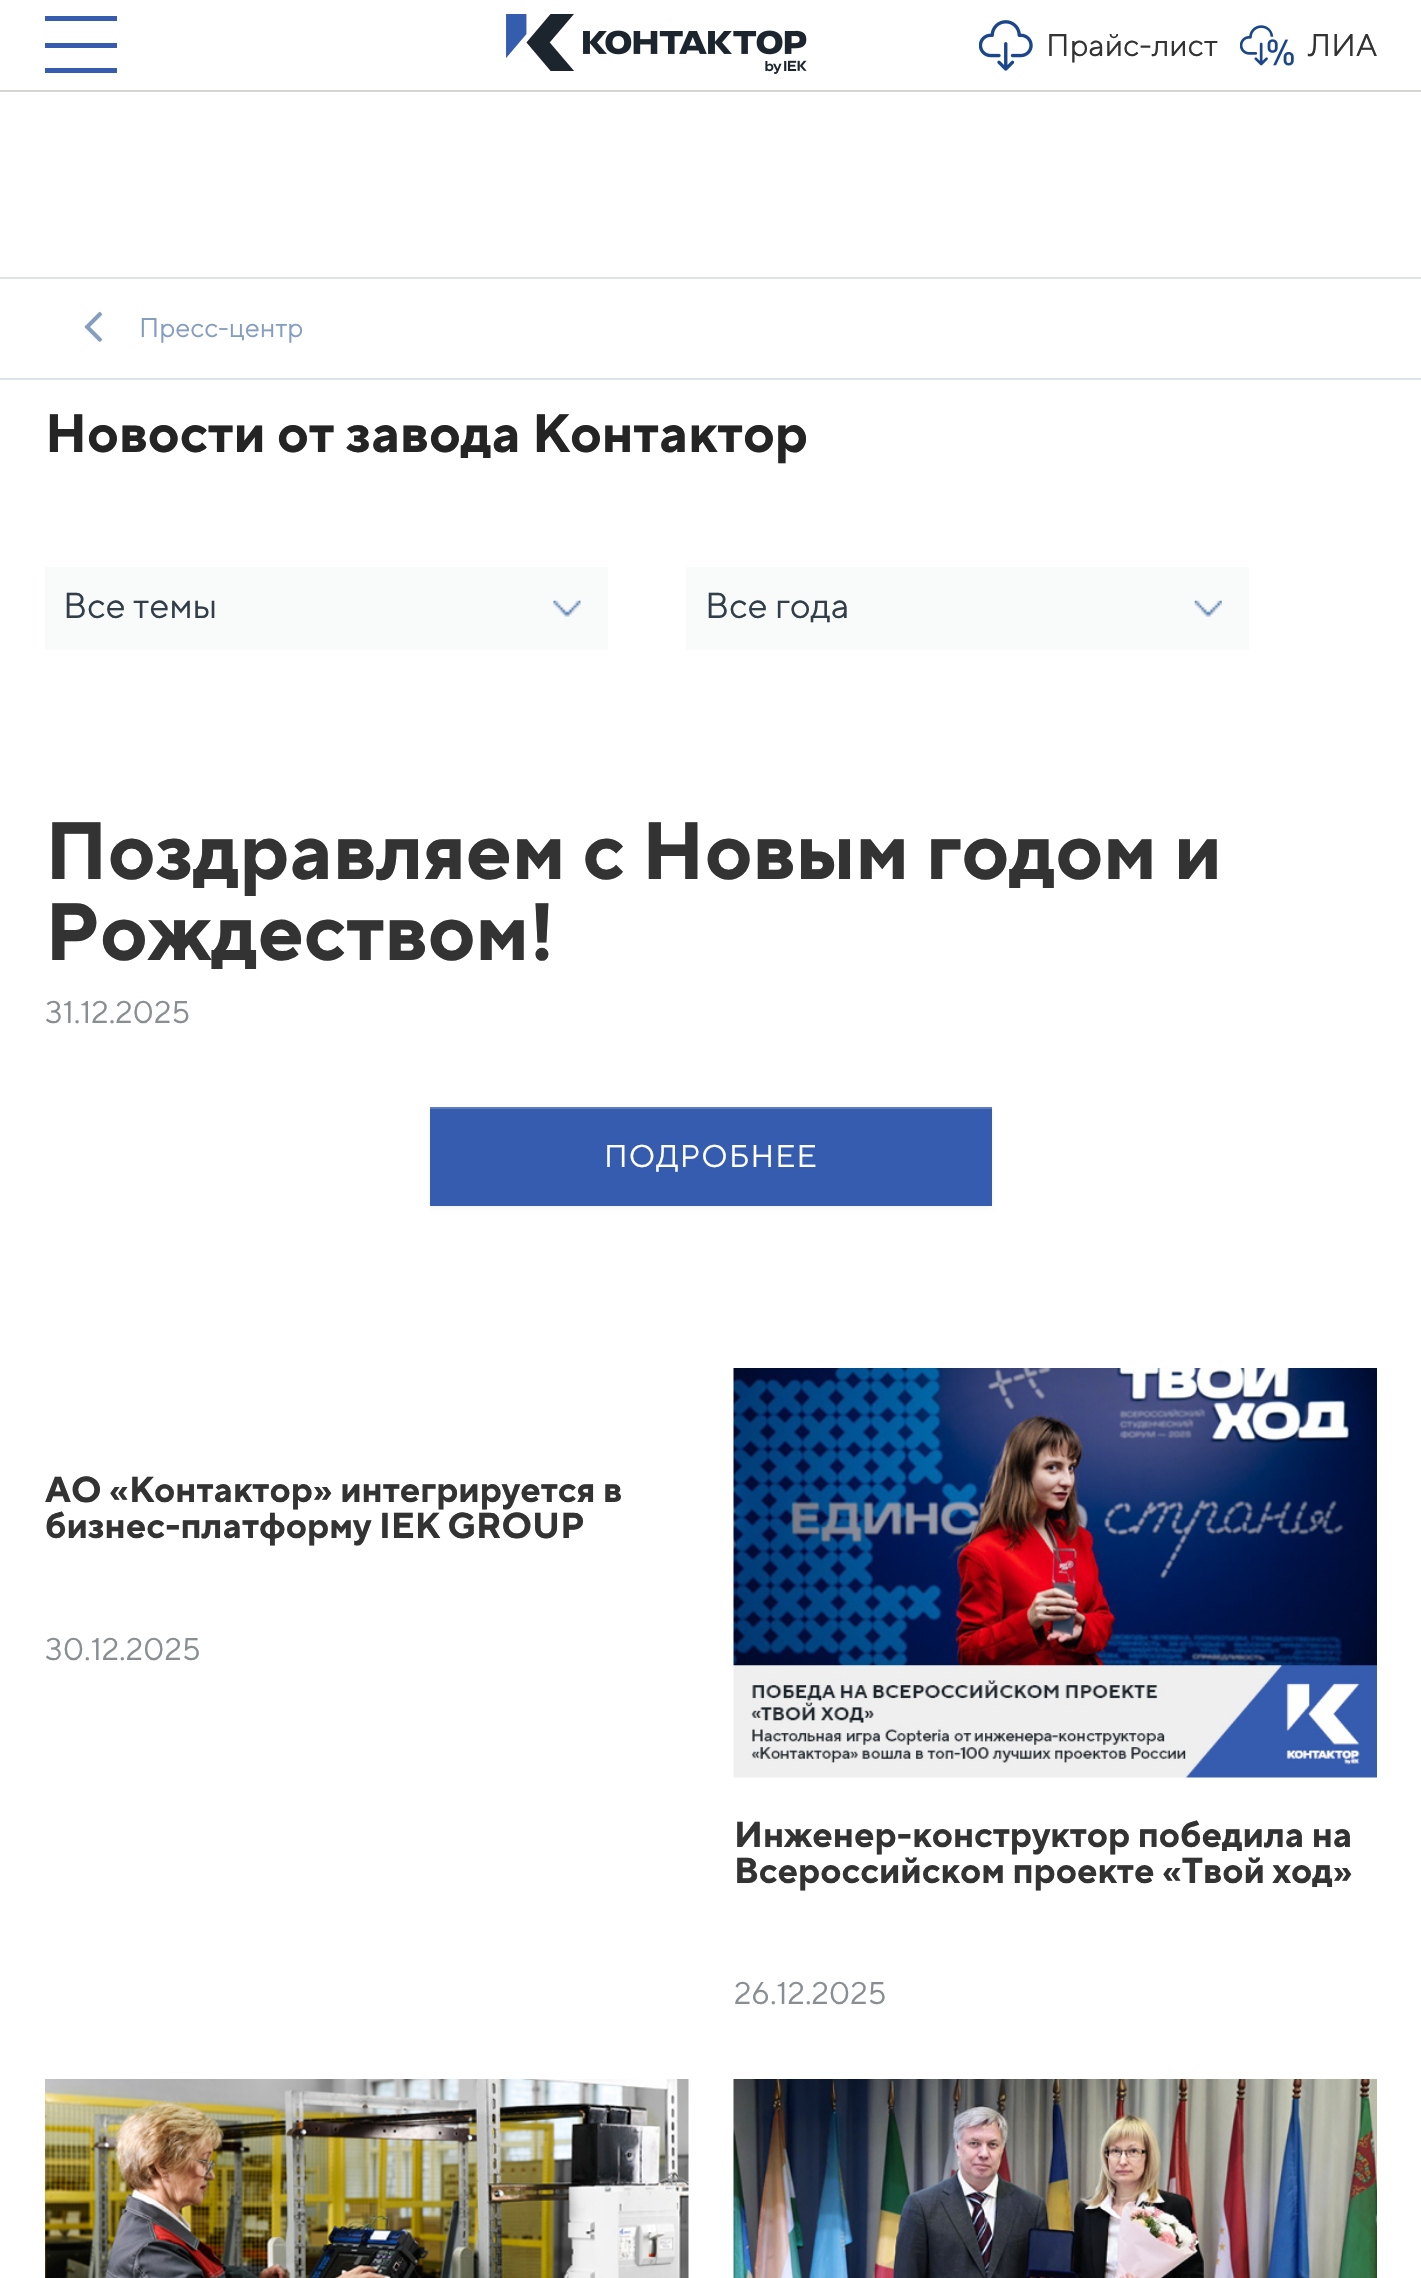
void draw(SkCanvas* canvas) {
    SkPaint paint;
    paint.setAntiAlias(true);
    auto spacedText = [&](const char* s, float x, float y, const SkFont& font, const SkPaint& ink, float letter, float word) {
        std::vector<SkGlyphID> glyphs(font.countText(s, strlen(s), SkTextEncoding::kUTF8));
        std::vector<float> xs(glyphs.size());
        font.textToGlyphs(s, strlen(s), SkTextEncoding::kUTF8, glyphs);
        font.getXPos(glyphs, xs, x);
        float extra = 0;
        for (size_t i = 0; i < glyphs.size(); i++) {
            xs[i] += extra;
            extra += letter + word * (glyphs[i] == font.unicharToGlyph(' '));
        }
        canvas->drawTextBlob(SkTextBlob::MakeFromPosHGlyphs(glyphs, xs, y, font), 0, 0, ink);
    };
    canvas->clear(0xFFFFFFFF);
    paint.setColor(0xFFD7D4D4);
    canvas->drawRect(SkRect::MakeXYWH(0, 90, 1421, 2), paint);
    paint.setColor(0xFF365CAF);
    canvas->drawRect(SkRect::MakeXYWH(45, 16, 72, 5), paint);
    canvas->drawRect(SkRect::MakeXYWH(45, 43, 72, 5), paint);
    canvas->drawRect(SkRect::MakeXYWH(45, 68, 72, 5), paint);
    canvas->drawImageRect(SkImages::DeferredFromEncodedData(SkData::MakeFromFileName("img1.png")), SkRect::MakeXYWH(506, 14, 301, 60), SkSamplingOptions());
    canvas->drawImageRect(SkImages::DeferredFromEncodedData(SkData::MakeFromFileName("img2.png")), SkRect::MakeXYWH(979, 20, 54, 51), SkSamplingOptions());
    SkFont font1(fontMgr->matchFamilyStyle("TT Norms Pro", SkFontStyle::Normal()), 31.5f);
    font1.setSubpixel(true);
    paint.setColor(0xFF333333);
    canvas->drawString("Прайс-лист", 1046, 56, font1, paint);
    canvas->drawImageRect(SkImages::DeferredFromEncodedData(SkData::MakeFromFileName("img3.png")), SkRect::MakeXYWH(1240, 25, 54, 41), SkSamplingOptions());
    canvas->drawString("ЛИА", 1308, 56, font1, paint);
    paint.setColor(0xFFDDE3ED);
    canvas->drawRect(SkRect::MakeXYWH(0, 277, 1421, 2), paint);
    canvas->drawRect(SkRect::MakeXYWH(0, 378, 1421, 2), paint);
    canvas->drawImageRect(SkImages::DeferredFromEncodedData(SkData::MakeFromFileName("img4.png")), SkRect::MakeXYWH(84, 311, 19, 31), SkSamplingOptions());
    SkFont font2(fontMgr->matchFamilyStyle("TT Norms Pro", SkFontStyle::Normal()), 27);
    font2.setSubpixel(true);
    paint.setColor(0xFF849DC1);
    canvas->drawString("Пресс-центр", 139, 337, font2, paint);
    SkFont font3(fontMgr->matchFamilyStyle("TT Norms Pro", SkFontStyle::Bold()), 54);
    font3.setSubpixel(true);
    paint.setColor(0xFF242424);
    canvas->drawString("Новости от завода Контактор", 45, 452, font3, paint);
    paint.setColor(0xFFF9FAFA);
    canvas->drawRect(SkRect::MakeXYWH(45, 567, 563, 83), paint);
    canvas->drawImageRect(SkImages::DeferredFromEncodedData(SkData::MakeFromFileName("img5.png")), SkRect::MakeXYWH(553, 600, 28, 17), SkSamplingOptions());
    SkFont font4(fontMgr->matchFamilyStyle("TT Norms Pro", SkFontStyle::Normal()), 36);
    font4.setSubpixel(true);
    paint.setColor(0xFF333F48);
    canvas->drawString("Все темы", 63, 618, font4, paint);
    paint.setColor(0xFFF9FAFA);
    canvas->drawRect(SkRect::MakeXYWH(686, 567, 563, 83), paint);
    canvas->drawImageRect(SkImages::DeferredFromEncodedData(SkData::MakeFromFileName("img6.png")), SkRect::MakeXYWH(1194, 600, 28, 17), SkSamplingOptions());
    paint.setColor(0xFF333F48);
    canvas->drawString("Все года", 705, 618, font4, paint);
    SkFont font5(fontMgr->matchFamilyStyle("TT Norms Pro", SkFontStyle::Bold()), 81);
    font5.setSubpixel(true);
    paint.setColor(0xFF333333);
    canvas->drawString("Поздравляем с Новым годом и", 45, 879, font5, paint);
    canvas->drawString("Рождеством!", 45, 960, font5, paint);
    paint.setColor(0xFF888E91);
    canvas->drawString("31.12.2025", 45, 1023, font1, paint);
    paint.setColor(0x0D000000);
    paint.setMaskFilter(SkMaskFilter::MakeBlur(kNormal_SkBlurStyle, 2));
    canvas->drawRect(SkRect::MakeXYWH(430, 1109, 562, 99), paint);
    paint.setMaskFilter(nullptr);
    paint.setColor(0xFF365CAF);
    canvas->drawRect(SkRect::MakeXYWH(430, 1109, 562, 97), paint);
    paint.setColor(0xFF5E7DBF);
    canvas->drawRect(SkRect::MakeXYWH(430, 1107, 562, 2), paint);
    paint.setColor(0xFFFFFFFF);
    spacedText("ПОДРОБНЕЕ", 604, 1167, font1, paint, 1.1f, 0);
    SkFont font6(fontMgr->matchFamilyStyle("TT Norms Pro", SkFontStyle::Bold()), 36);
    font6.setSubpixel(true);
    paint.setColor(0xFF333333);
    canvas->drawString("АО «Контактор» интегрируется в", 45, 1502, font6, paint);
    canvas->drawString("бизнес-платформу IEK GROUP", 45, 1538, font6, paint);
    paint.setColor(0xFF888E91);
    canvas->drawString("30.12.2025", 45, 1660, font1, paint);
    canvas->drawImageRect(SkImages::DeferredFromEncodedData(SkData::MakeFromFileName("img7.png")), SkRect::MakeXYWH(733, 1368, 644, 410), SkSamplingOptions());
    paint.setColor(0xFF333333);
    canvas->drawString("Инженер-конструктор победила на", 734, 1847, font6, paint);
    canvas->drawString("Всероссийском проекте «Твой ход»", 734, 1883, font6, paint);
    paint.setColor(0xFF888E91);
    canvas->drawString("26.12.2025", 734, 2004, font1, paint);
    canvas->drawImageRect(SkImages::DeferredFromEncodedData(SkData::MakeFromFileName("img8.png")), SkRect::MakeXYWH(45, 2079, 644, 199), SkSamplingOptions());
    canvas->drawImageRect(SkImages::DeferredFromEncodedData(SkData::MakeFromFileName("img9.png")), SkRect::MakeXYWH(733, 2079, 644, 199), SkSamplingOptions());
}
